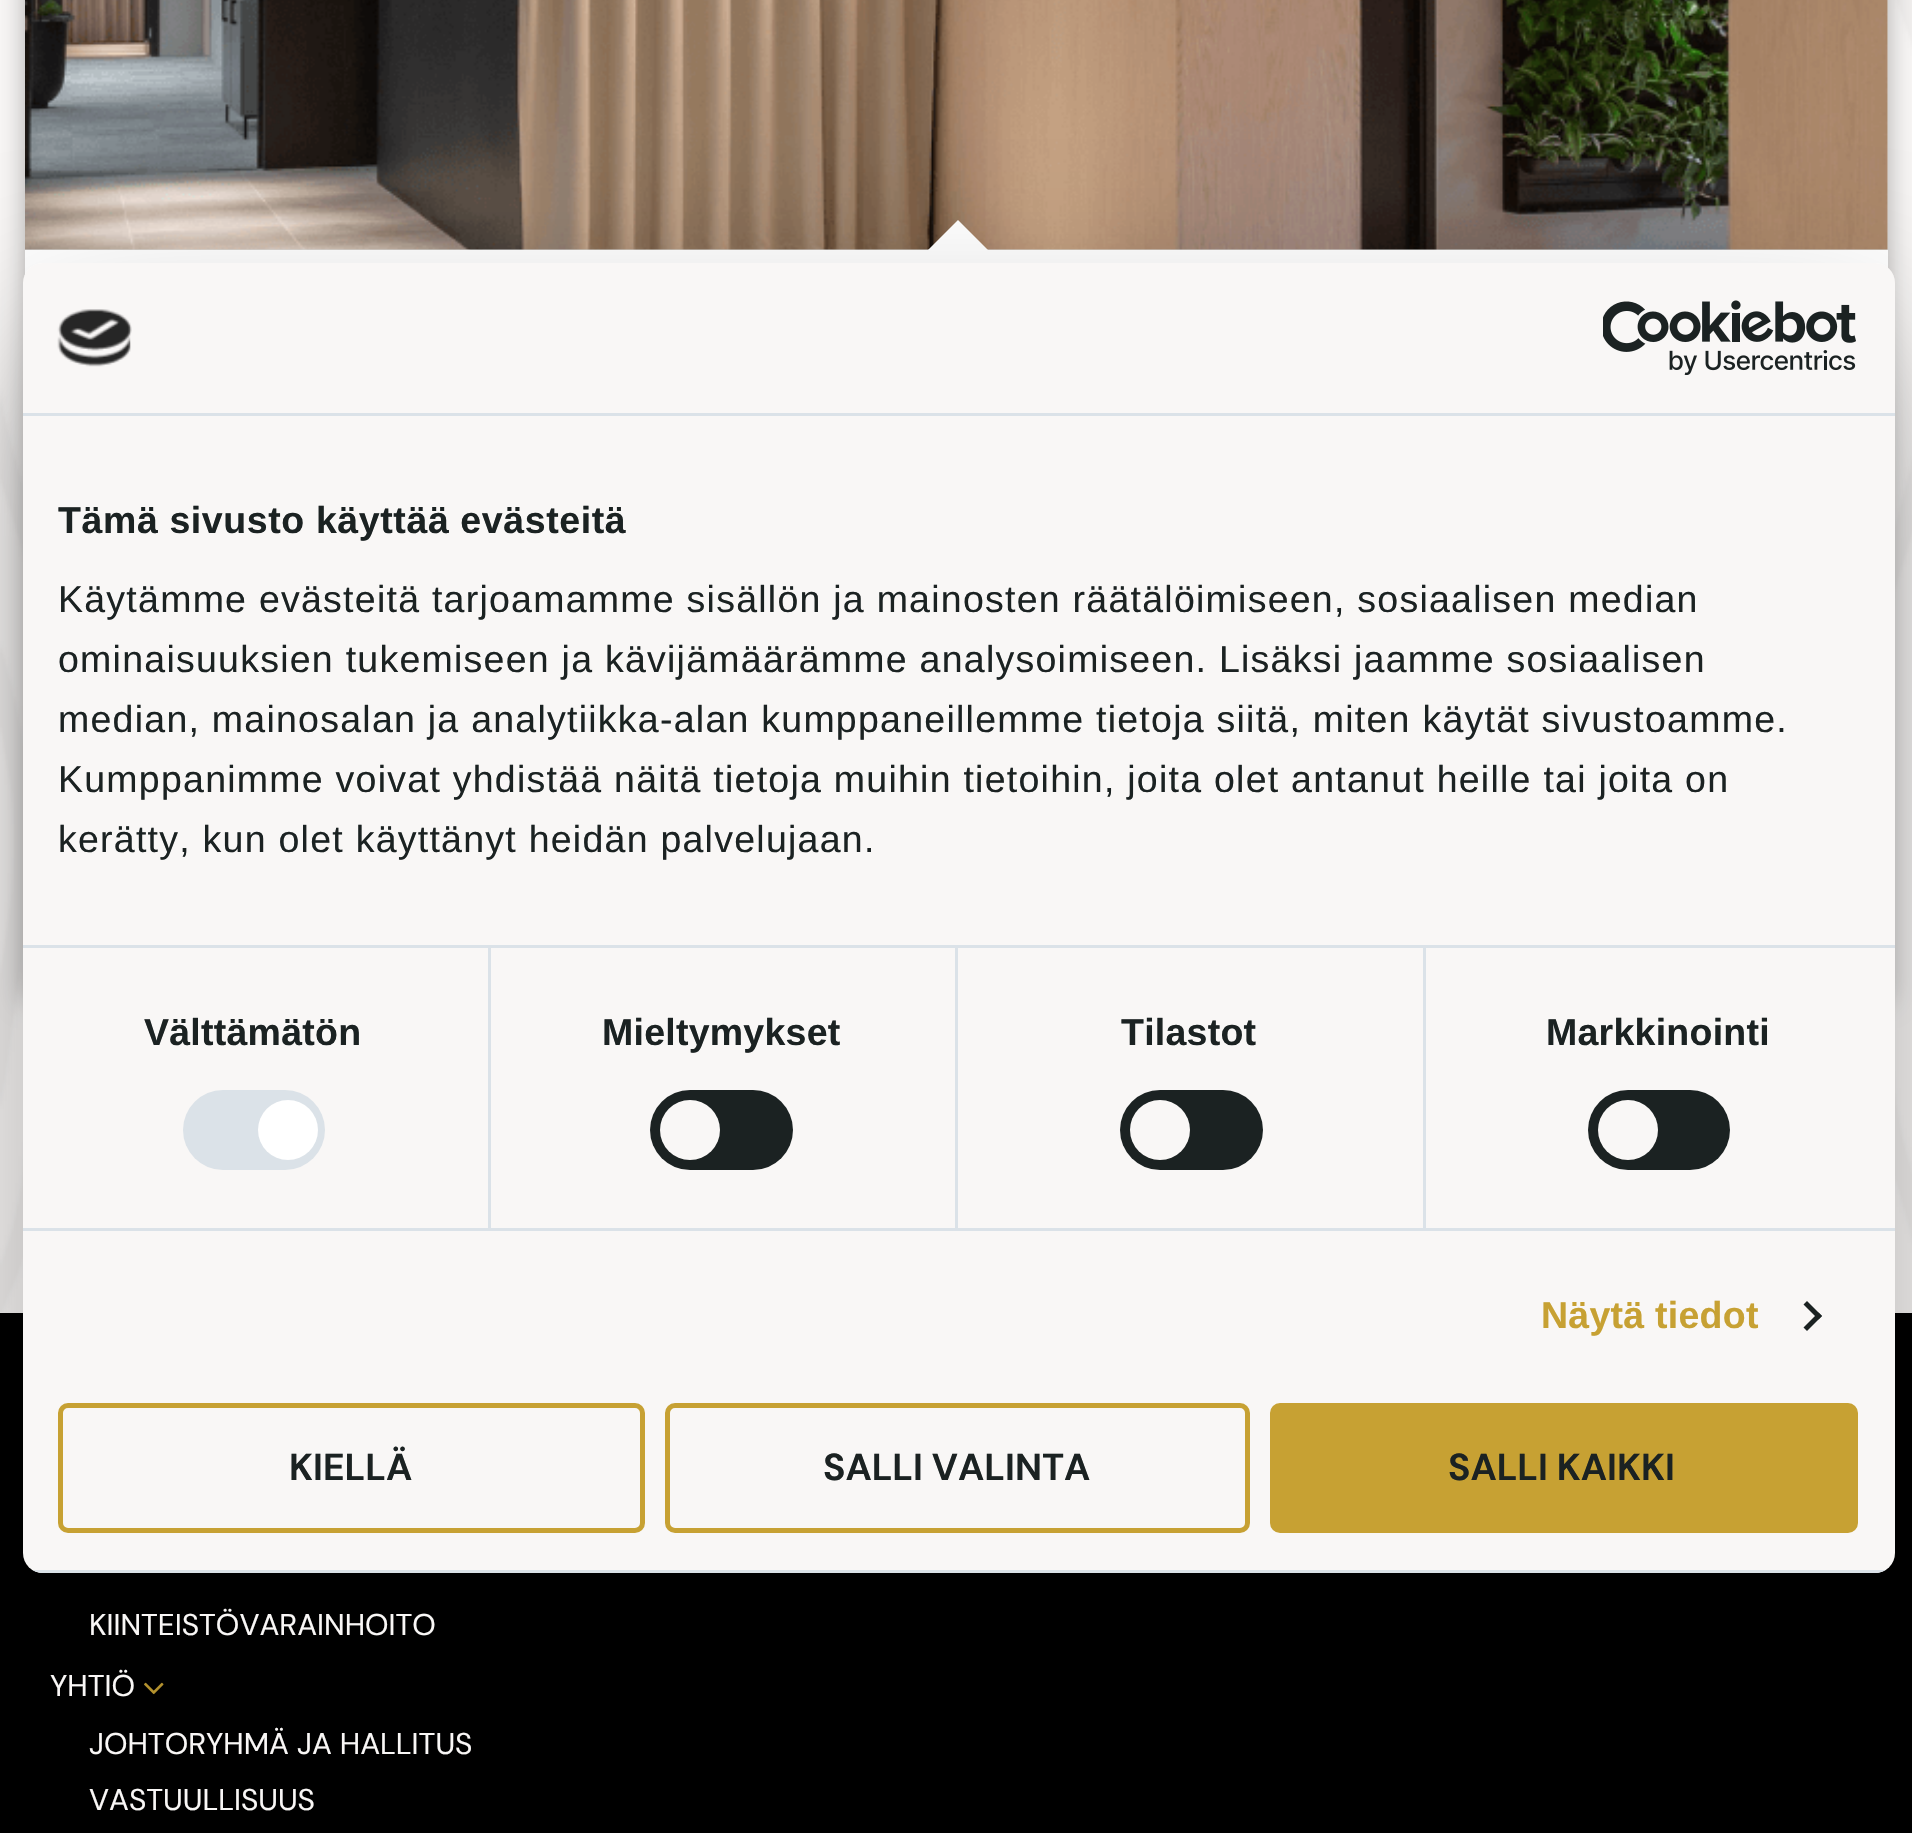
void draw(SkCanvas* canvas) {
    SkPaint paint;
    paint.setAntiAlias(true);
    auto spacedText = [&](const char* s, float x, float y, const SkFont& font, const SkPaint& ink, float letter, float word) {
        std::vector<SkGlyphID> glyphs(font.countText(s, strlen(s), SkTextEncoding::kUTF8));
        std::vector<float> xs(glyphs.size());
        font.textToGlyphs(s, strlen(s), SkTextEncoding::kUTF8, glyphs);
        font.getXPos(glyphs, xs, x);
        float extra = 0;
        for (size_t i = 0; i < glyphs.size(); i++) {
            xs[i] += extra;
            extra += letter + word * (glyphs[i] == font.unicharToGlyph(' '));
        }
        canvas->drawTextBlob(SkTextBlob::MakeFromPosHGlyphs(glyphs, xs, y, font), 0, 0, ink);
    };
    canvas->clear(0xFFF9F7F6);
    canvas->drawImageRect(SkImages::DeferredFromEncodedData(SkData::MakeFromFileName("img3.png")), SkRect::MakeXYWH(0, 0, 1912, 1312), SkSamplingOptions());
    paint.setColor(0x4D000000);
    paint.setMaskFilter(SkMaskFilter::MakeBlur(kNormal_SkBlurStyle, 12.5f));
    canvas->drawRect(SkRect::MakeXYWH(25, -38, 1863, 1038), paint);
    paint.setMaskFilter(nullptr);
    paint.setColor(0xFFFFFFFF);
    canvas->drawRect(SkRect::MakeXYWH(25, 250, 1863, 25), paint);
    paint.setColor(0xFFD9DADB);
    canvas->drawRect(SkRect::MakeXYWH(25, 0, 1863, 250), paint);
    canvas->drawImageRect(SkImages::DeferredFromEncodedData(SkData::MakeFromFileName("img4.png")), SkRect::MakeXYWH(25, 0, 1863, 250), SkSamplingOptions());
    paint.setColor(0xFFFFFFFF);
    canvas->drawPath(SkPathBuilder().moveTo(988, 250).lineTo(928, 250).lineTo(958, 220).close().detach(), paint);
    paint.setColor(0xFF000000);
    canvas->drawRect(SkRect::MakeXYWH(0, 1313, 1912, 520), paint);
    canvas->drawImageRect(SkImages::DeferredFromEncodedData(SkData::MakeFromFileName("img5.png")), SkRect::MakeXYWH(144, 1682, 20, 13), SkSamplingOptions());
    canvas->save();
    canvas->clipPath(SkPathBuilder(SkPathFillType::kEvenOdd).moveTo(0, 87).lineTo(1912, 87).lineTo(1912, 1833).lineTo(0, 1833).close().moveTo(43, 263).lineTo(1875, 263).cubicTo(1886, 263, 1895, 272, 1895, 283).lineTo(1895, 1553).cubicTo(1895, 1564, 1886, 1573, 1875, 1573).lineTo(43, 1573).cubicTo(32, 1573, 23, 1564, 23, 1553).lineTo(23, 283).cubicTo(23, 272, 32, 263, 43, 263).close().detach(), true);
    paint.setColor(0x4D000000);
    paint.setMaskFilter(SkMaskFilter::MakeBlur(kNormal_SkBlurStyle, 85));
    canvas->drawRoundRect(SkRect::MakeXYWH(23, 343, 1872, 1310), 20, 20, paint);
    paint.setMaskFilter(nullptr);
    canvas->restore();
    paint.setColor(0xFFF9F7F6);
    canvas->drawRoundRect(SkRect::MakeXYWH(23, 263, 1872, 1310), 20, 20, paint);
    paint.setColor(0xFFDBE2E8);
    canvas->drawRect(SkRect::MakeXYWH(23, 413, 1872, 3), paint);
    canvas->drawImageRect(SkImages::DeferredFromEncodedData(SkData::MakeFromFileName("img1.png")), SkRect::MakeXYWH(57, 309, 75, 58), SkSamplingOptions());
    canvas->drawImageRect(SkImages::DeferredFromEncodedData(SkData::MakeFromFileName("img2.png")), SkRect::MakeXYWH(1603, 300, 253, 75), SkSamplingOptions());
    canvas->drawRect(SkRect::MakeXYWH(23, 945, 1872, 3), paint);
    SkFont font1(fontMgr->matchFamilyStyle("Liberation Sans", SkFontStyle::Bold()), 37.5f);
    font1.setSubpixel(true);
    paint.setColor(0xFF1B2222);
    spacedText("Tämä sivusto käyttää evästeitä", 58, 533, font1, paint, 0.6f, 0);
    SkFont font2(fontMgr->matchFamilyStyle("Liberation Sans", SkFontStyle::Normal()), 37.5f);
    font2.setSubpixel(true);
    spacedText("Käytämme evästeitä tarjoamamme sisällön ja mainosten räätälöimiseen, sosiaalisen median", 58, 612, font2, paint, 1.25f, 0);
    spacedText("ominaisuuksien tukemiseen ja kävijämäärämme analysoimiseen. Lisäksi jaamme sosiaalisen", 58, 672, font2, paint, 1.25f, 0);
    spacedText("median, mainosalan ja analytiikka-alan kumppaneillemme tietoja siitä, miten käytät sivustoamme.", 58, 732, font2, paint, 1.25f, 0);
    spacedText("Kumppanimme voivat yhdistää näitä tietoja muihin tietoihin, joita olet antanut heille tai joita on", 58, 792, font2, paint, 1.25f, 0);
    spacedText("kerätty, kun olet käyttänyt heidän palvelujaan.", 58, 852, font2, paint, 1.25f, 0);
    paint.setColor(0xFFDBE2E8);
    canvas->drawRect(SkRect::MakeXYWH(23, 1228, 1872, 3), paint);
    canvas->drawRect(SkRect::MakeXYWH(488, 948, 3, 280), paint);
    paint.setColor(0xFF1B2222);
    spacedText("Välttämätön", 144, 1045, font1, paint, 0.25f, 0);
    paint.setColor(0xFFDBE2E8);
    canvas->drawRoundRect(SkRect::MakeXYWH(183, 1090, 142, 80), 40, 40, paint);
    paint.setColor(0xFFFFFFFF);
    canvas->drawCircle(288, 1130, 30, paint);
    paint.setColor(0xFFDBE2E8);
    canvas->drawRect(SkRect::MakeXYWH(955, 948, 3, 280), paint);
    paint.setColor(0xFF1B2222);
    spacedText("Mieltymykset", 602, 1045, font1, paint, 0.25f, 0);
    canvas->drawRoundRect(SkRect::MakeXYWH(650, 1090, 143, 80), 40, 40, paint);
    paint.setColor(0xFFF9F7F6);
    canvas->drawCircle(690, 1130, 30, paint);
    paint.setColor(0xFFDBE2E8);
    canvas->drawRect(SkRect::MakeXYWH(1423, 948, 3, 280), paint);
    paint.setColor(0xFF1B2222);
    spacedText("Tilastot", 1121, 1045, font1, paint, 0.25f, 0);
    canvas->drawRoundRect(SkRect::MakeXYWH(1120, 1090, 143, 80), 40, 40, paint);
    paint.setColor(0xFFF9F7F6);
    canvas->drawCircle(1160, 1130, 30, paint);
    paint.setColor(0xFF1B2222);
    spacedText("Markkinointi", 1546, 1045, font1, paint, 0.25f, 0);
    canvas->drawRoundRect(SkRect::MakeXYWH(1588, 1090, 142, 80), 40, 40, paint);
    paint.setColor(0xFFF9F7F6);
    canvas->drawCircle(1628, 1130, 30, paint);
    paint.setColor(0xFFC7A133);
    spacedText("Näytä tiedot", 1541, 1328, font1, paint, 0.25f, 0);
    paint.setColor(0xFF1B2222);
    canvas->drawPath(SkPathBuilder().moveTo(1807, 1301).lineTo(1822, 1316).lineTo(1818.5f, 1319.5f).lineTo(1803.5f, 1304.5f).close().detach(), paint);
    canvas->drawPath(SkPathBuilder().moveTo(1818.5f, 1312.5f).lineTo(1822, 1316).lineTo(1807, 1331).lineTo(1803.5f, 1327.5f).close().detach(), paint);
    canvas->save();
    canvas->clipPath(SkPathBuilder().moveTo(43, 263).lineTo(1875, 263).cubicTo(1886, 263, 1895, 272, 1895, 283).lineTo(1895, 1553).cubicTo(1895, 1564, 1886, 1573, 1875, 1573).lineTo(43, 1573).cubicTo(32, 1573, 23, 1564, 23, 1553).lineTo(23, 283).cubicTo(23, 272, 32, 263, 43, 263).close().detach(), true);
    paint.setColor(0xFFDBE2E8);
    canvas->drawRect(SkRect::MakeXYWH(32, 1570, 1854, 3), paint);
    canvas->restore();
    paint.setStyle(SkPaint::kStroke_Style);
    paint.setStrokeWidth(5);
    paint.setColor(0xFFC7A133);
    canvas->drawRoundRect(SkRect::MakeXYWH(60.5f, 1405.5f, 582, 125), 7.5f, 7.5f, paint);
    SkFont font3(fontMgr->matchFamilyStyle("DM Sans", SkFontStyle::Bold()), 37.5f);
    font3.setSubpixel(true);
    paint.setStyle(SkPaint::kFill_Style);
    paint.setColor(0xFF1B2222);
    canvas->drawString("KIELLÄ", 289, 1480, font3, paint);
    paint.setStyle(SkPaint::kStroke_Style);
    paint.setColor(0xFFC7A133);
    canvas->drawRoundRect(SkRect::MakeXYWH(667.5f, 1405.5f, 580, 125), 7.5f, 7.5f, paint);
    paint.setStyle(SkPaint::kFill_Style);
    paint.setColor(0xFF1B2222);
    canvas->drawString("SALLI VALINTA", 823, 1480, font3, paint);
    paint.setColor(0xFFC7A133);
    canvas->drawRoundRect(SkRect::MakeXYWH(1272.5f, 1405.5f, 583, 125), 7.5f, 7.5f, paint);
    paint.setStyle(SkPaint::kStroke_Style);
    canvas->drawRoundRect(SkRect::MakeXYWH(1272.5f, 1405.5f, 583, 125), 7.5f, 7.5f, paint);
    paint.setStyle(SkPaint::kFill_Style);
    paint.setColor(0xFF1B2222);
    canvas->drawString("SALLI KAIKKI", 1448, 1480, font3, paint);
    SkFont font4(fontMgr->matchFamilyStyle("DM Sans", SkFontStyle::Normal()), 30);
    font4.setSubpixel(true);
    paint.setColor(0xFFF9F7F6);
    canvas->drawString("KIINTEISTÖVARAINHOITO", 89, 1635, font4, paint);
    canvas->drawString("YHTIÖ", 50, 1696, font4, paint);
    canvas->drawString("JOHTORYHMÄ JA HALLITUS", 89, 1754, font4, paint);
    canvas->drawString("VASTUULLISUUS", 89, 1810, font4, paint);
}
